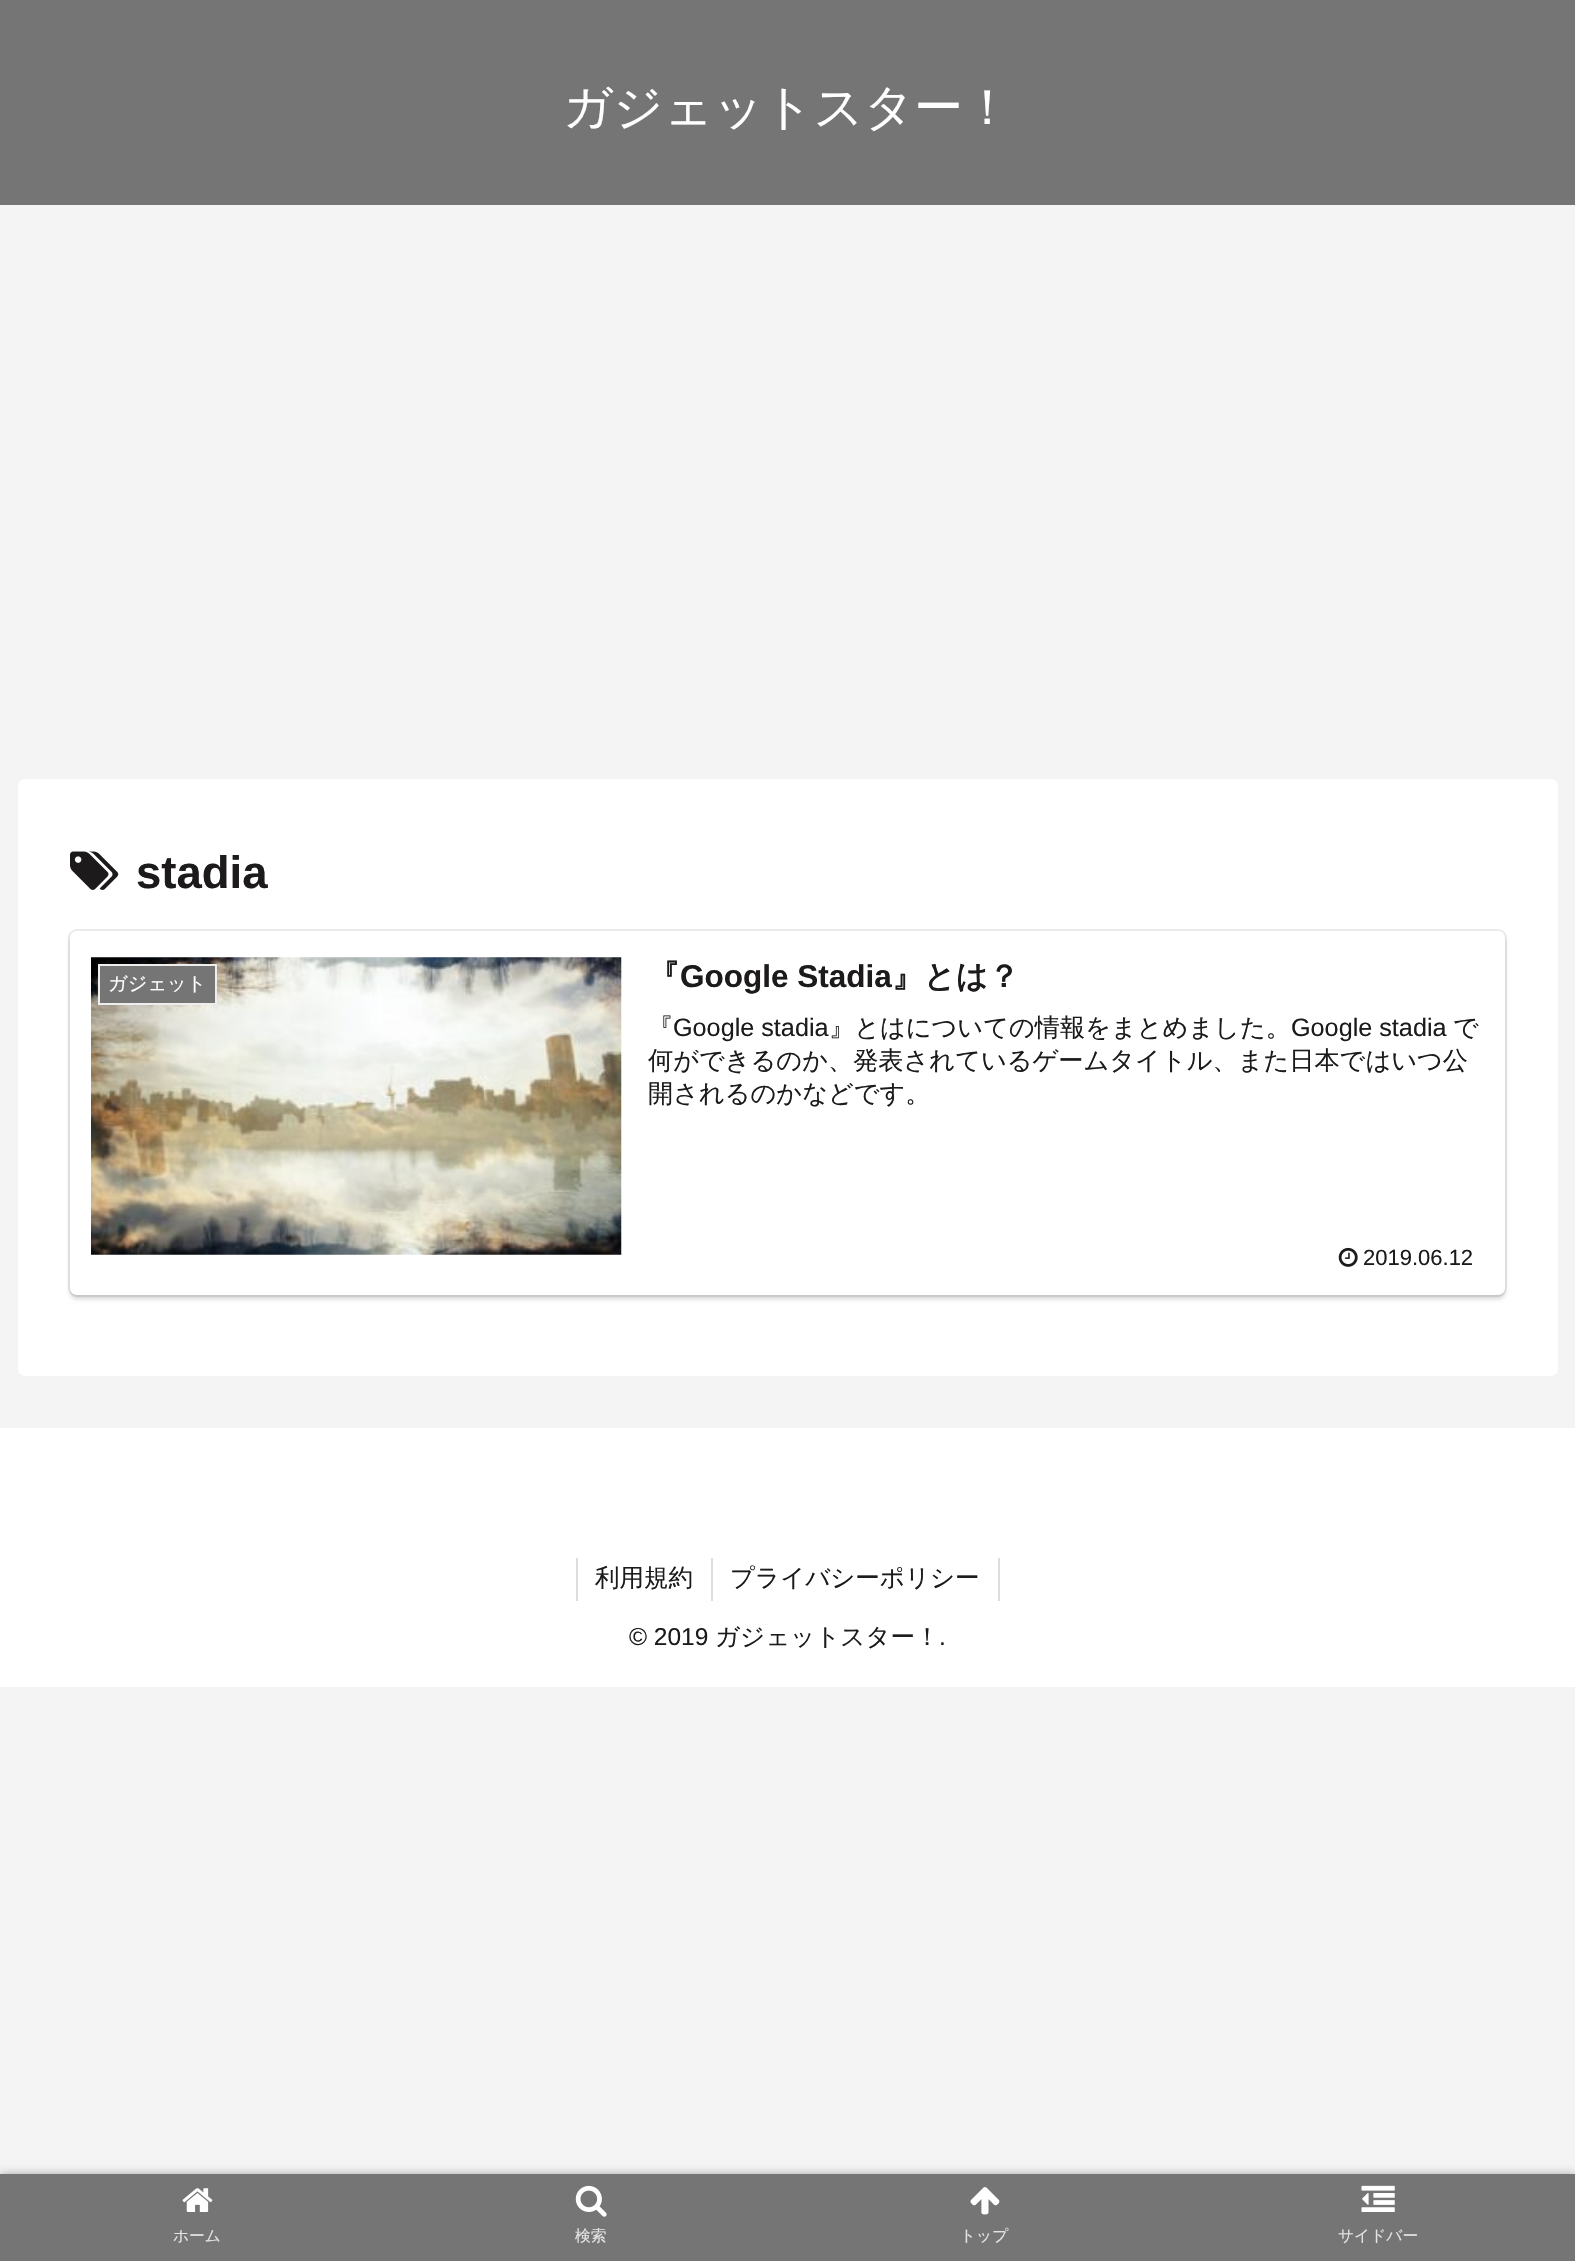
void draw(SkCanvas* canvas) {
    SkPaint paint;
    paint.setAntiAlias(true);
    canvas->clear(0xFFF4F4F4);
    paint.setColor(0xFF757575);
    canvas->drawRect(SkRect::MakeXYWH(0, 0, 1575, 205), paint);
    SkFont font1(fontMgr->matchFamilyStyle("WenQuanYi Zen Hei", SkFontStyle(500, SkFontStyle::kNormal_Width, SkFontStyle::kUpright_Slant)), 49);
    font1.setSubpixel(true);
    paint.setColor(0xFFFFFFFF);
    canvas->drawString("ガジェットスター！", 563, 124, font1, paint);
    canvas->drawRoundRect(SkRect::MakeXYWH(18, 779, 1540, 597), 7, 7, paint);
    canvas->drawImageRect(SkImages::DeferredFromEncodedData(SkData::MakeFromFileName("img1.png")), SkRect::MakeXYWH(70, 851, 49, 39), SkSamplingOptions());
    SkFont font2(fontMgr->matchFamilyStyle("Liberation Sans", SkFontStyle::Bold()), 45.5f);
    font2.setSubpixel(true);
    paint.setColor(0xFF1C1A1A);
    canvas->drawString("stadia", 136, 888, font2, paint);
    paint.setStyle(SkPaint::kStroke_Style);
    paint.setStrokeWidth(2);
    paint.setColor(0xFFEBEBEB);
    canvas->drawRoundRect(SkRect::MakeXYWH(69, 930, 1437, 366), 8, 8, paint);
    paint.setStyle(SkPaint::kFill_Style);
    paint.setColor(0x29000000);
    paint.setMaskFilter(SkMaskFilter::MakeBlur(kNormal_SkBlurStyle, 2));
    canvas->drawRoundRect(SkRect::MakeXYWH(70, 935, 1435, 364), 7, 7, paint);
    paint.setMaskFilter(nullptr);
    paint.setColor(0xFFFFFFFF);
    canvas->drawRoundRect(SkRect::MakeXYWH(70, 931, 1435, 364), 7, 7, paint);
    canvas->drawImageRect(SkImages::DeferredFromEncodedData(SkData::MakeFromFileName("img2.png")), SkRect::MakeXYWH(91, 957, 531, 298), SkSamplingOptions());
    paint.setColor(0xFF757575);
    canvas->drawRect(SkRect::MakeXYWH(99, 965, 117, 39), paint);
    paint.setStyle(SkPaint::kStroke_Style);
    paint.setColor(0xFFEEEEEE);
    canvas->drawRect(SkRect::MakeXYWH(99, 965, 117, 39), paint);
    SkFont font3(fontMgr->matchFamilyStyle("WenQuanYi Zen Hei", SkFontStyle(500, SkFontStyle::kNormal_Width, SkFontStyle::kUpright_Slant)), 19.25f);
    font3.setSubpixel(true);
    paint.setStyle(SkPaint::kFill_Style);
    paint.setColor(0xFFFFFFFF);
    canvas->drawString("ガジェット", 108, 990, font3, paint);
    SkFont font4(fontMgr->matchFamilyStyle("WenQuanYi Zen Hei", SkFontStyle::Bold()), 31.5f);
    font4.setSubpixel(true);
    paint.setColor(0xFF1C1A1A);
    canvas->drawString("『", 648, 987, font4, paint);
    SkFont font5(fontMgr->matchFamilyStyle("Liberation Sans", SkFontStyle::Bold()), 31.5f);
    font5.setSubpixel(true);
    canvas->drawString("Google Stadia", 680, 987, font5, paint);
    canvas->drawString("』とは？", 892, 987, font4, paint);
    SkFont font6(fontMgr->matchFamilyStyle("WenQuanYi Zen Hei", SkFontStyle(500, SkFontStyle::kNormal_Width, SkFontStyle::kUpright_Slant)), 25.2f);
    font6.setSubpixel(true);
    canvas->drawString("『", 648, 1036, font6, paint);
    SkFont font7(fontMgr->matchFamilyStyle("Liberation Sans", SkFontStyle::Normal()), 25.2f);
    font7.setSubpixel(true);
    canvas->drawString("Google stadia", 673, 1036, font7, paint);
    canvas->drawString("』とはについての情報をまとめました。", 829, 1036, font6, paint);
    canvas->drawString("Google stadia", 1291, 1036, font7, paint);
    canvas->drawString("で", 1453, 1036, font6, paint);
    canvas->drawString("何ができるのか、発表されているゲームタイトル、また日本ではいつ公", 648, 1069, font6, paint);
    canvas->drawString("開されるのかなどです。", 648, 1102, font6, paint);
    canvas->drawImageRect(SkImages::DeferredFromEncodedData(SkData::MakeFromFileName("img3.png")), SkRect::MakeXYWH(1338, 1247, 20, 20), SkSamplingOptions());
    SkFont font8(fontMgr->matchFamilyStyle("Liberation Sans", SkFontStyle::Normal()), 22);
    font8.setSubpixel(true);
    canvas->drawString("2019.06.12", 1363, 1265, font8, paint);
    paint.setColor(0xFFFFFFFF);
    canvas->drawRect(SkRect::MakeXYWH(0, 1428, 1575, 259), paint);
    paint.setColor(0xFFDDDDDD);
    canvas->drawRect(SkRect::MakeXYWH(576, 1558, 2, 43), paint);
    SkFont font9(fontMgr->matchFamilyStyle("WenQuanYi Zen Hei", SkFontStyle(500, SkFontStyle::kNormal_Width, SkFontStyle::kUpright_Slant)), 24.5f);
    font9.setSubpixel(true);
    paint.setColor(0xFF1C1A1A);
    canvas->drawString("利用規約", 595, 1586, font9, paint);
    paint.setColor(0xFFDDDDDD);
    canvas->drawRect(SkRect::MakeXYWH(998, 1558, 2, 43), paint);
    canvas->drawRect(SkRect::MakeXYWH(711, 1558, 2, 43), paint);
    paint.setColor(0xFF1C1A1A);
    canvas->drawString("プライバシーポリシー", 730, 1586, font9, paint);
    SkFont font10(fontMgr->matchFamilyStyle("Liberation Sans", SkFontStyle::Normal()), 24.5f);
    font10.setSubpixel(true);
    canvas->drawString("© 2019", 629, 1645, font10, paint);
    canvas->drawString("ガジェットスター！", 715, 1645, font9, paint);
    canvas->drawString(".", 939, 1645, font10, paint);
    paint.setColor(0xFFA9A9A9);
    paint.setMaskFilter(SkMaskFilter::MakeBlur(kNormal_SkBlurStyle, 4.5f));
    canvas->drawRect(SkRect::MakeXYWH(0, 2174, 1575, 87), paint);
    paint.setMaskFilter(nullptr);
    paint.setColor(0xFF757575);
    canvas->drawRect(SkRect::MakeXYWH(0, 2174, 1575, 87), paint);
    canvas->drawImageRect(SkImages::DeferredFromEncodedData(SkData::MakeFromFileName("img4.png")), SkRect::MakeXYWH(182, 2188, 31, 24), SkSamplingOptions());
    SkFont font11(fontMgr->matchFamilyStyle("WenQuanYi Zen Hei", SkFontStyle(500, SkFontStyle::kNormal_Width, SkFontStyle::kUpright_Slant)), 15.75f);
    font11.setSubpixel(true);
    paint.setColor(0xFFE3E3E3);
    canvas->drawString("ホーム", 173, 2241, font11, paint);
    canvas->drawImageRect(SkImages::DeferredFromEncodedData(SkData::MakeFromFileName("img5.png")), SkRect::MakeXYWH(575, 2185, 32, 32), SkSamplingOptions());
    canvas->drawString("検索", 575, 2241, font11, paint);
    canvas->drawImageRect(SkImages::DeferredFromEncodedData(SkData::MakeFromFileName("img6.png")), SkRect::MakeXYWH(970, 2187, 30, 28), SkSamplingOptions());
    canvas->drawString("トップ", 960, 2241, font11, paint);
    canvas->drawImageRect(SkImages::DeferredFromEncodedData(SkData::MakeFromFileName("img7.png")), SkRect::MakeXYWH(1361, 2185, 34, 27), SkSamplingOptions());
    canvas->drawString("サイドバー", 1338, 2241, font11, paint);
}
